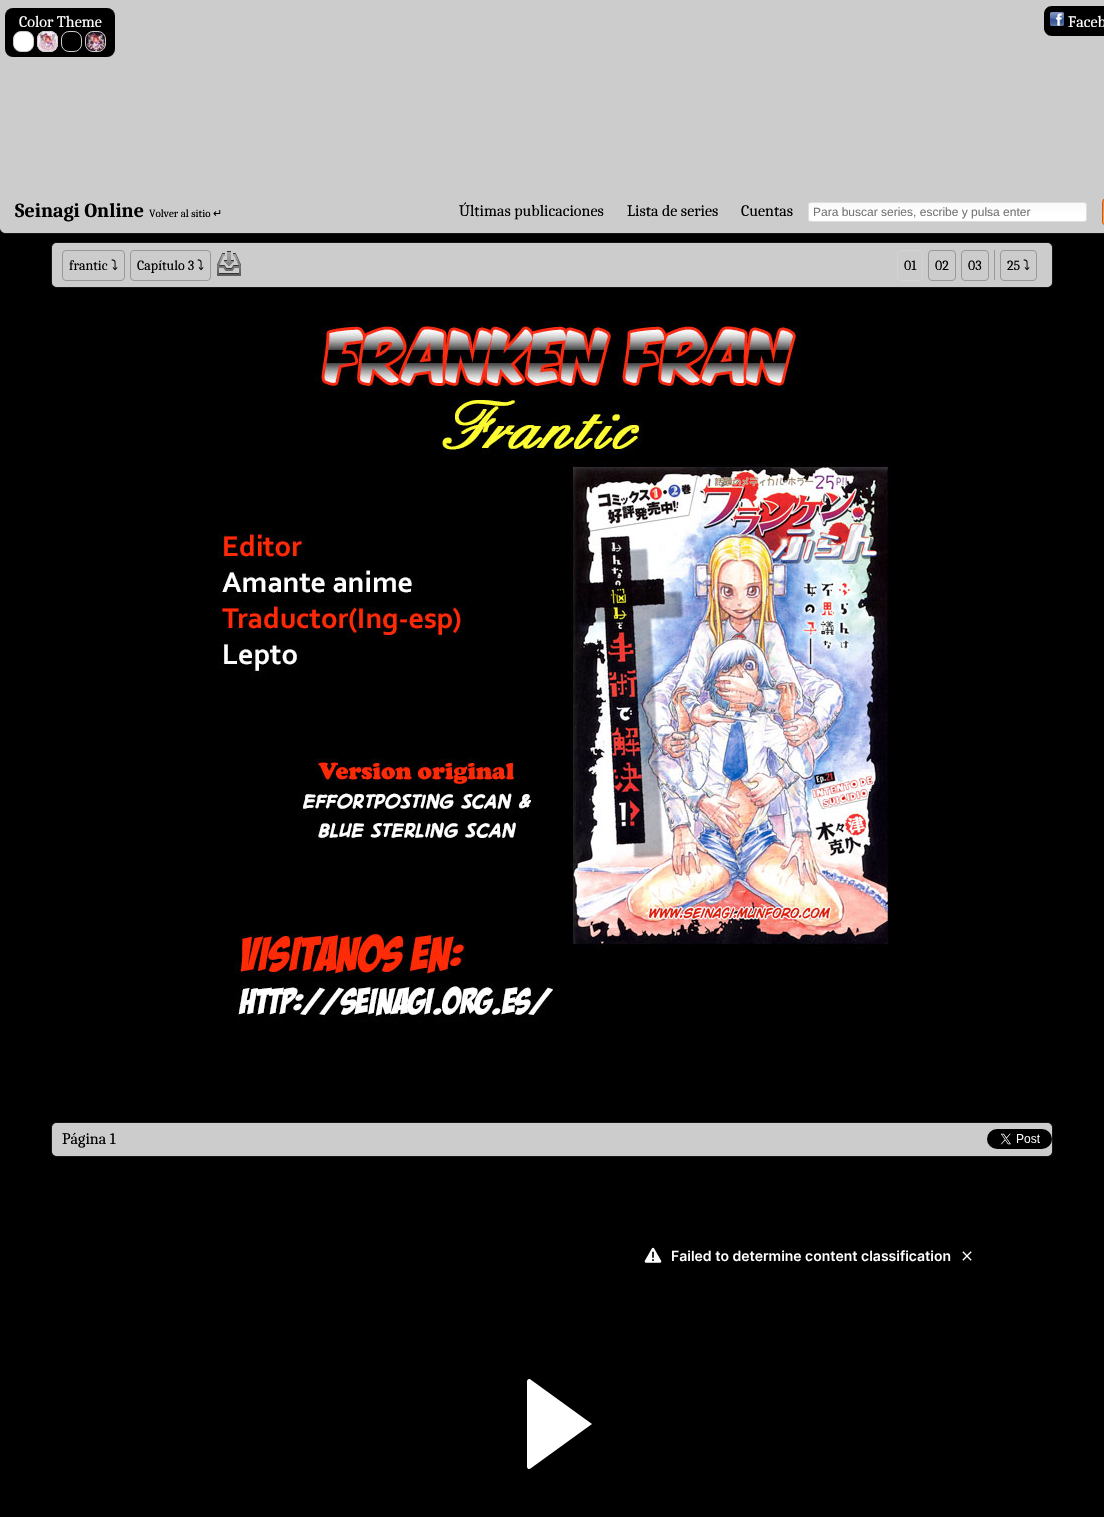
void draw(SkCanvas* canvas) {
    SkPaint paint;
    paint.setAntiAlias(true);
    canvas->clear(0xFF000000);
    paint.setColor(0xFFDDDDDD);
    paint.setMaskFilter(SkMaskFilter::MakeBlur(kNormal_SkBlurStyle, 0.5f));
    canvas->drawRoundRect(SkRect::MakeXYWH(0, 0, 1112, 233), 6, 6, paint);
    paint.setMaskFilter(nullptr);
    paint.setColor(0xFFCCCCCC);
    canvas->drawPath(SkPathBuilder().moveTo(0, 0).lineTo(1104, 0).lineTo(1104, 233).lineTo(6, 233).cubicTo(2.5f, 233, 0, 230.5f, 0, 227).close().detach(), paint);
    paint.setColor(0xFF000000);
    canvas->drawRoundRect(SkRect::MakeXYWH(5, 8, 110, 49), 8, 8, paint);
    SkFont font1(fontMgr->matchFamilyStyle("Caladea", SkFontStyle::Normal()), 16);
    font1.setSubpixel(true);
    paint.setColor(0xFFFFFFFF);
    canvas->drawString("Color Theme", 19, 27, font1, paint);
    canvas->drawRoundRect(SkRect::MakeXYWH(13.5f, 31.5f, 20, 20), 7.5f, 7.5f, paint);
    paint.setStyle(SkPaint::kStroke_Style);
    paint.setStrokeWidth(1);
    paint.setColor(0xFFCCCCCC);
    canvas->drawRoundRect(SkRect::MakeXYWH(13.5f, 31.5f, 20, 20), 7.5f, 7.5f, paint);
    paint.setStyle(SkPaint::kFill_Style);
    paint.setColor(0xFFFFFFFF);
    canvas->drawRoundRect(SkRect::MakeXYWH(37, 31, 21, 21), 8, 8, paint);
    canvas->drawImageRect(SkImages::DeferredFromEncodedData(SkData::MakeFromFileName("img1.png")), SkRect::MakeXYWH(38, 32, 20, 20), SkSamplingOptions());
    paint.setStyle(SkPaint::kStroke_Style);
    paint.setColor(0xFFCCCCCC);
    canvas->drawRoundRect(SkRect::MakeXYWH(37.5f, 31.5f, 20, 20), 7.5f, 7.5f, paint);
    canvas->drawRoundRect(SkRect::MakeXYWH(61.5f, 31.5f, 20, 20), 7.5f, 7.5f, paint);
    canvas->drawImageRect(SkImages::DeferredFromEncodedData(SkData::MakeFromFileName("img2.png")), SkRect::MakeXYWH(86, 32, 20, 20), SkSamplingOptions());
    canvas->drawRoundRect(SkRect::MakeXYWH(85.5f, 31.5f, 20, 20), 7.5f, 7.5f, paint);
    paint.setStyle(SkPaint::kFill_Style);
    paint.setColor(0xFF000000);
    canvas->drawPath(SkPathBuilder().moveTo(1052, 6).lineTo(1104, 6).lineTo(1104, 36).lineTo(1052, 36).cubicTo(1047.5f, 36, 1044, 32.5f, 1044, 28).lineTo(1044, 14).cubicTo(1044, 9.5f, 1047.5f, 6, 1052, 6).close().detach(), paint);
    canvas->drawImageRect(SkImages::DeferredFromEncodedData(SkData::MakeFromFileName("img3.png")), SkRect::MakeXYWH(1050, 12, 14, 14), SkSamplingOptions());
    paint.setColor(0xFFFFFFFF);
    canvas->drawString("Faceb", 1068, 27, font1, paint);
    SkFont font2(fontMgr->matchFamilyStyle("Caladea", SkFontStyle::Bold()), 20);
    font2.setSubpixel(true);
    paint.setColor(0xFF000000);
    canvas->drawString("Seinagi Online", 15, 217, font2, paint);
    SkFont font3(fontMgr->matchFamilyStyle("Caladea", SkFontStyle::Normal()), 11);
    font3.setSubpixel(true);
    canvas->drawString("Volver al sitio", 149, 217, font3, paint);
    SkFont font4(fontMgr->matchFamilyStyle("DejaVu Sans", SkFontStyle::Normal()), 11);
    font4.setSubpixel(true);
    canvas->drawString("↵", 213, 217, font4, paint);
    canvas->drawString("Últimas publicaciones", 459, 216, font1, paint);
    canvas->drawString("Lista de series", 627, 216, font1, paint);
    canvas->drawString("Cuentas", 741, 216, font1, paint);
    canvas->save();
    canvas->clipPath(SkPathBuilder().moveTo(811, 202).lineTo(1084, 202).cubicTo(1085.5f, 202, 1087, 203.5f, 1087, 205).lineTo(1087, 219).cubicTo(1087, 220.5f, 1085.5f, 222, 1084, 222).lineTo(811, 222).cubicTo(809.5f, 222, 808, 220.5f, 808, 219).lineTo(808, 205).cubicTo(808, 203.5f, 809.5f, 202, 811, 202).close().detach(), true);
    {
        const SkColor colors[] = {0xFFF9F9F9, 0xFFFFFFFF};
        const float stops[] = {0, 0.74f};
        const SkPoint ends[] = {{948, 203}, {948, 221}};
        paint.setShader(SkGradientShader::MakeLinear(ends, colors, stops, 2, SkTileMode::kClamp));
        paint.setAlpha(255);
    }
    canvas->drawRect(SkRect::MakeXYWH(808, 203, 279, 18), paint);
    canvas->restore();
    paint.setStyle(SkPaint::kStroke_Style);
    paint.setShader(nullptr);
    paint.setColor(0xFFDDDDDD);
    canvas->drawRoundRect(SkRect::MakeXYWH(808.5f, 202.5f, 278, 19), 2.5f, 2.5f, paint);
    SkFont font5(fontMgr->matchFamilyStyle("Liberation Sans", SkFontStyle::Normal()), 12);
    font5.setSubpixel(true);
    paint.setStyle(SkPaint::kFill_Style);
    paint.setColor(0xFF757575);
    canvas->drawString("Para buscar series, escribe y pulsa enter", 813, 216, font5, paint);
    canvas->drawImageRect(SkImages::DeferredFromEncodedData(SkData::MakeFromFileName("img4.png")), SkRect::MakeXYWH(1102, 199, 2, 26), SkSamplingOptions());
    paint.setColor(0xFFDDDDDD);
    paint.setMaskFilter(SkMaskFilter::MakeBlur(kNormal_SkBlurStyle, 0.5f));
    canvas->drawRoundRect(SkRect::MakeXYWH(52, 243, 1000, 44), 5, 5, paint);
    paint.setMaskFilter(nullptr);
    paint.setColor(0xFFCCCCCC);
    canvas->drawRoundRect(SkRect::MakeXYWH(52, 243, 1000, 44), 5, 5, paint);
    paint.setStyle(SkPaint::kStroke_Style);
    paint.setColor(0xFF999999);
    canvas->drawRoundRect(SkRect::MakeXYWH(62.5f, 250.5f, 62, 30), 3.5f, 3.5f, paint);
    SkFont font6(fontMgr->matchFamilyStyle("Caladea", SkFontStyle::Normal()), 14);
    font6.setSubpixel(true);
    paint.setStyle(SkPaint::kFill_Style);
    paint.setColor(0xFF000000);
    canvas->drawString("frantic", 69, 270, font6, paint);
    SkFont font7(fontMgr->matchFamilyStyle("IPAGothic", SkFontStyle::Normal()), 14);
    font7.setSubpixel(true);
    canvas->drawString("⤵", 111, 270, font7, paint);
    paint.setStyle(SkPaint::kStroke_Style);
    paint.setColor(0xFF999999);
    canvas->drawRoundRect(SkRect::MakeXYWH(130.5f, 250.5f, 80, 30), 3.5f, 3.5f, paint);
    paint.setStyle(SkPaint::kFill_Style);
    paint.setColor(0xFF000000);
    canvas->drawString("Capítulo 3", 137, 270, font6, paint);
    canvas->drawString("⤵", 197, 270, font7, paint);
    canvas->drawImageRect(SkImages::DeferredFromEncodedData(SkData::MakeFromFileName("img5.png")), SkRect::MakeXYWH(217, 251, 24, 25), SkSamplingOptions());
    paint.setStyle(SkPaint::kStroke_Style);
    paint.setColor(0xFFD3D3D3);
    canvas->drawRoundRect(SkRect::MakeXYWH(897.5f, 250.5f, 25, 30), 3.5f, 3.5f, paint);
    paint.setStyle(SkPaint::kFill_Style);
    paint.setColor(0xFF000000);
    canvas->drawString("01", 904, 270, font6, paint);
    paint.setStyle(SkPaint::kStroke_Style);
    paint.setColor(0xFF999999);
    canvas->drawRoundRect(SkRect::MakeXYWH(928.5f, 250.5f, 27, 30), 3.5f, 3.5f, paint);
    paint.setStyle(SkPaint::kFill_Style);
    paint.setColor(0xFF000000);
    canvas->drawString("02", 935, 270, font6, paint);
    paint.setStyle(SkPaint::kStroke_Style);
    paint.setColor(0xFF999999);
    canvas->drawRoundRect(SkRect::MakeXYWH(961.5f, 250.5f, 27, 30), 3.5f, 3.5f, paint);
    paint.setStyle(SkPaint::kFill_Style);
    paint.setColor(0xFF000000);
    canvas->drawString("03", 968, 270, font6, paint);
    paint.setColor(0xFF999999);
    canvas->drawRect(SkRect::MakeXYWH(994, 250, 1, 30), paint);
    paint.setStyle(SkPaint::kStroke_Style);
    canvas->drawRoundRect(SkRect::MakeXYWH(1000.5f, 250.5f, 36, 30), 3.5f, 3.5f, paint);
    paint.setStyle(SkPaint::kFill_Style);
    paint.setColor(0xFF000000);
    canvas->drawString("25", 1007, 270, font6, paint);
    canvas->drawString("⤵", 1023, 270, font7, paint);
    canvas->drawImageRect(SkImages::DeferredFromEncodedData(SkData::MakeFromFileName("img6.png")), SkRect::MakeXYWH(218, 326, 672, 696), SkSamplingOptions());
    paint.setColor(0xFFDDDDDD);
    paint.setMaskFilter(SkMaskFilter::MakeBlur(kNormal_SkBlurStyle, 0.5f));
    canvas->drawRoundRect(SkRect::MakeXYWH(52, 1123, 1000, 33), 5, 5, paint);
    paint.setMaskFilter(nullptr);
    paint.setColor(0xFFCCCCCC);
    canvas->drawRoundRect(SkRect::MakeXYWH(52, 1123, 1000, 33), 5, 5, paint);
    paint.setColor(0xFF000000);
    canvas->drawString("Página 1", 62, 1144, font1, paint);
    canvas->drawImageRect(SkImages::DeferredFromEncodedData(SkData::MakeFromFileName("img7.png")), SkRect::MakeXYWH(987, 1129, 65, 20), SkSamplingOptions());
    canvas->drawImageRect(SkImages::DeferredFromEncodedData(SkData::MakeFromFileName("img8.png")), SkRect::MakeXYWH(526, 1247, 446, 222), SkSamplingOptions());
}
